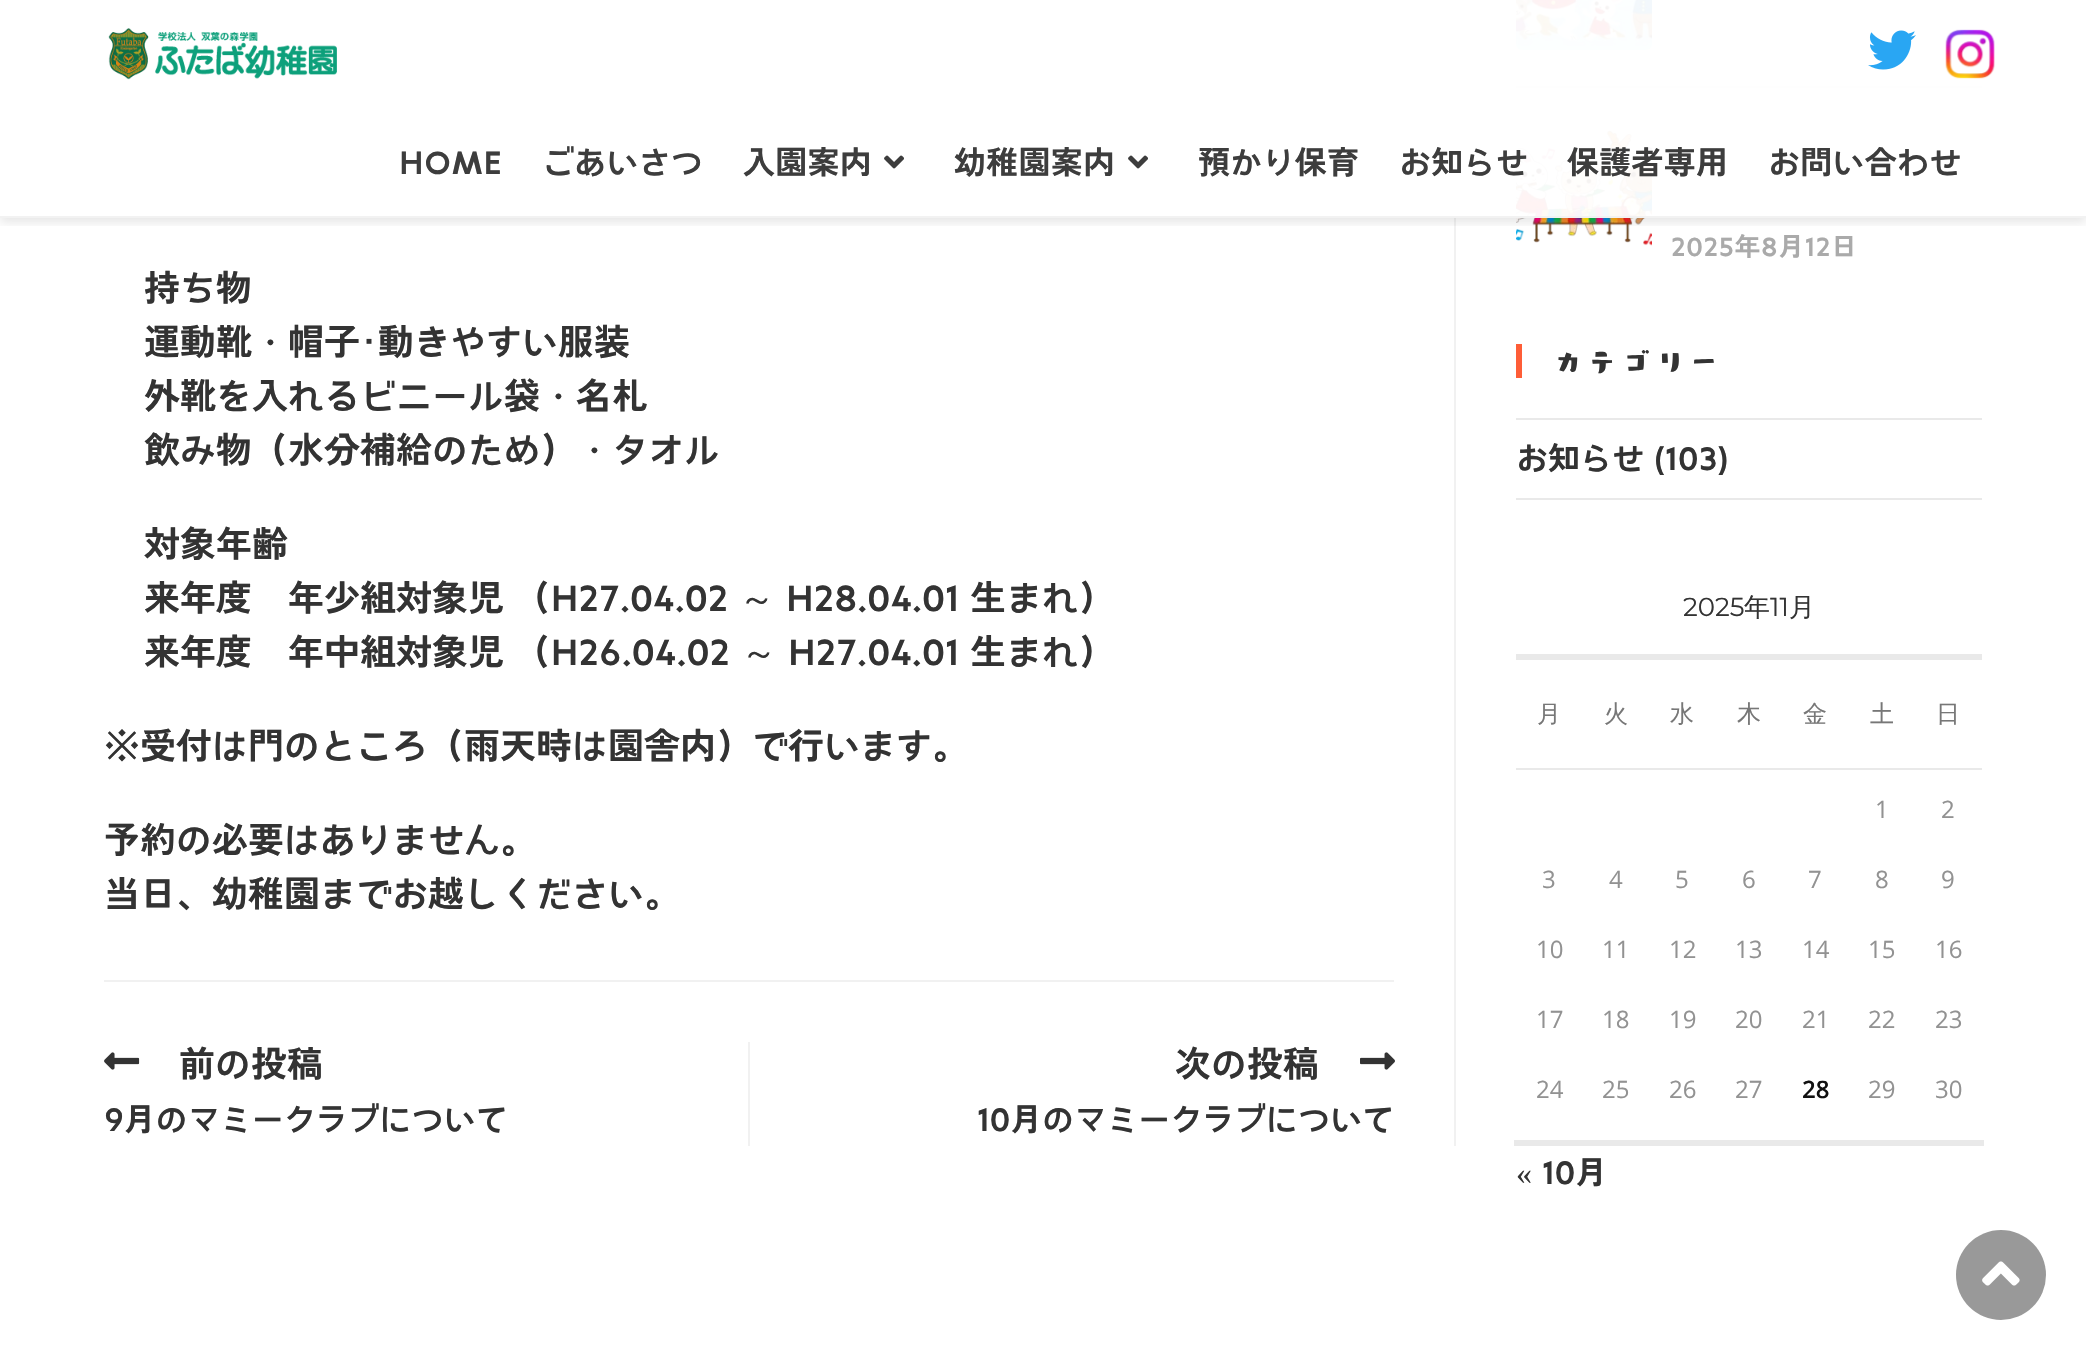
void draw(SkCanvas* canvas) {
    SkPaint paint;
    paint.setAntiAlias(true);
    auto spacedText = [&](const char* s, float x, float y, const SkFont& font, const SkPaint& ink, float letter, float word) {
        std::vector<SkGlyphID> glyphs(font.countText(s, strlen(s), SkTextEncoding::kUTF8));
        std::vector<float> xs(glyphs.size());
        font.textToGlyphs(s, strlen(s), SkTextEncoding::kUTF8, glyphs);
        font.getXPos(glyphs, xs, x);
        float extra = 0;
        for (size_t i = 0; i < glyphs.size(); i++) {
            xs[i] += extra;
            extra += letter + word * (glyphs[i] == font.unicharToGlyph(' '));
        }
        canvas->drawTextBlob(SkTextBlob::MakeFromPosHGlyphs(glyphs, xs, y, font), 0, 0, ink);
    };
    canvas->clear(0xFFFFFFFF);
    paint.setColor(0xFFF1F1F1);
    canvas->drawRect(SkRect::MakeXYWH(1454, 0, 2, 1146), paint);
    canvas->drawImageRect(SkImages::DeferredFromEncodedData(SkData::MakeFromFileName("img7.png")), SkRect::MakeXYWH(1516, 0, 136, 50), SkSamplingOptions());
    paint.setColor(0xFFE9E9E9);
    canvas->drawRect(SkRect::MakeXYWH(1516, 86, 466, 2), paint);
    canvas->drawImageRect(SkImages::DeferredFromEncodedData(SkData::MakeFromFileName("img8.png")), SkRect::MakeXYWH(1516, 130, 136, 116), SkSamplingOptions());
    canvas->save();
    canvas->clipRect(SkRect::MakeXYWH(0, 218, 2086, 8));
    paint.setColor(0x1A000000);
    paint.setMaskFilter(SkMaskFilter::MakeBlur(kNormal_SkBlurStyle, 5));
    canvas->drawRect(SkRect::MakeXYWH(0, 4, 2086, 218), paint);
    paint.setMaskFilter(nullptr);
    canvas->restore();
    paint.setColor(0xF2FFFFFF);
    canvas->drawRect(SkRect::MakeXYWH(1454, 0, 528, 218), paint);
    paint.setColor(0xF2F1F1F1);
    canvas->drawRect(SkRect::MakeXYWH(0, 216, 2086, 2), paint);
    canvas->drawImageRect(SkImages::DeferredFromEncodedData(SkData::MakeFromFileName("img1.png")), SkRect::MakeXYWH(108, 28, 229, 52), SkSamplingOptions());
    canvas->drawImageRect(SkImages::DeferredFromEncodedData(SkData::MakeFromFileName("img2.png")), SkRect::MakeXYWH(1868, 30, 48, 40), SkSamplingOptions());
    canvas->drawImageRect(SkImages::DeferredFromEncodedData(SkData::MakeFromFileName("img3.png")), SkRect::MakeXYWH(1945, 29, 50, 50), SkSamplingOptions());
    SkFont font1(fontMgr->matchFamilyStyle("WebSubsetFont", SkFontStyle::Bold()), 32);
    font1.setSubpixel(true);
    paint.setColor(0xFF3D3D3D);
    spacedText("HOME", 399, 174, font1, paint, 0.25f, 0);
    spacedText("ごあいさつ", 542, 174, font1, paint, 0.25f, 0);
    spacedText("入園案内", 743, 174, font1, paint, 0.25f, 0);
    canvas->drawImageRect(SkImages::DeferredFromEncodedData(SkData::MakeFromFileName("img4.png")), SkRect::MakeXYWH(884, 155, 20, 14), SkSamplingOptions());
    spacedText("幼稚園案内", 954, 174, font1, paint, 0.25f, 0);
    canvas->drawImageRect(SkImages::DeferredFromEncodedData(SkData::MakeFromFileName("img4.png")), SkRect::MakeXYWH(1128, 155, 20, 14), SkSamplingOptions());
    spacedText("預かり保育", 1198, 174, font1, paint, 0.25f, 0);
    spacedText("お知らせ", 1399, 174, font1, paint, 0.25f, 0);
    spacedText("保護者専用", 1567, 174, font1, paint, 0.25f, 0);
    spacedText("お問い合わせ", 1768, 174, font1, paint, 0.25f, 0);
    SkFont font2(fontMgr->matchFamilyStyle("WebSubsetFont", SkFontStyle::Bold()), 36);
    font2.setSubpixel(true);
    paint.setColor(0xFF333333);
    canvas->drawString("持ち物", 144, 301, font2, paint);
    canvas->drawString("運動靴", 144, 355, font2, paint);
    SkFont font3(fontMgr->matchFamilyStyle("WenQuanYi Zen Hei", SkFontStyle(500, SkFontStyle::kNormal_Width, SkFontStyle::kUpright_Slant)), 36);
    font3.setSubpixel(true);
    canvas->drawString("・", 252, 355, font3, paint);
    canvas->drawString("帽子", 288, 355, font2, paint);
    SkFont font4(fontMgr->matchFamilyStyle("IPAPGothic", SkFontStyle::Normal()), 36);
    font4.setSubpixel(true);
    canvas->drawString("･", 360, 355, font4, paint);
    canvas->drawString("動きやすい服装", 378, 355, font2, paint);
    canvas->drawString("外靴を入れるビニール袋", 144, 409, font2, paint);
    canvas->drawString("・", 540, 409, font3, paint);
    canvas->drawString("名札", 576, 409, font2, paint);
    canvas->drawString("飲み物（水分補給のため）", 144, 463, font2, paint);
    canvas->drawString("・", 576, 463, font3, paint);
    canvas->drawString("タオル", 612, 463, font2, paint);
    canvas->drawString("対象年齢", 144, 557, font2, paint);
    canvas->drawString("来年度", 144, 611, font2, paint);
    canvas->drawString("年少組対象児 （H27.04.02", 288, 611, font2, paint);
    canvas->drawString("～", 739, 611, font3, paint);
    canvas->drawString("H28.04.01 生まれ）", 786, 611, font2, paint);
    canvas->drawString("来年度", 144, 665, font2, paint);
    canvas->drawString("年中組対象児 （H26.04.02", 288, 665, font2, paint);
    canvas->drawString("～", 741, 665, font3, paint);
    canvas->drawString("H27.04.01 生まれ）", 788, 665, font2, paint);
    canvas->drawString("※受付は門のところ（雨天時は園舎内）で行います。", 104, 759, font2, paint);
    canvas->drawString("予約の必要はありません。", 104, 853, font2, paint);
    canvas->drawString("当日、幼稚園までお越しください。", 104, 907, font2, paint);
    paint.setColor(0xFFF1F1F1);
    canvas->drawRect(SkRect::MakeXYWH(104, 980, 1290, 2), paint);
    canvas->drawRect(SkRect::MakeXYWH(748, 1042, 2, 104), paint);
    canvas->drawImageRect(SkImages::DeferredFromEncodedData(SkData::MakeFromFileName("img5.png")), SkRect::MakeXYWH(104, 1052, 36, 18), SkSamplingOptions());
    paint.setColor(0xFF333333);
    canvas->drawString("前の投稿", 179, 1077, font2, paint);
    canvas->drawString("9月のマミークラブについて", 104, 1131, font1, paint);
    canvas->drawString("次の投稿", 1175, 1077, font2, paint);
    canvas->drawImageRect(SkImages::DeferredFromEncodedData(SkData::MakeFromFileName("img6.png")), SkRect::MakeXYWH(1360, 1052, 35, 18), SkSamplingOptions());
    canvas->drawString("10月のマミークラブについて", 977, 1131, font1, paint);
    SkFont font5(fontMgr->matchFamilyStyle("WebSubsetFont", SkFontStyle::Bold()), 26);
    font5.setSubpixel(true);
    paint.setColor(0xFFAAAAAA);
    spacedText("2025年8月12日", 1671, 256, font5, paint, 0.5f, 0);
    paint.setColor(0xFFFE5D37);
    canvas->drawRect(SkRect::MakeXYWH(1516, 344, 6, 34), paint);
    SkFont font6(fontMgr->matchFamilyStyle("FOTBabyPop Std", SkFontStyle(800, SkFontStyle::kNormal_Width, SkFontStyle::kUpright_Slant)), 32);
    font6.setSubpixel(true);
    paint.setColor(0xFF333333);
    spacedText("カテゴリー", 1552, 373, font6, paint, 2, 0);
    paint.setColor(0xFFE9E9E9);
    canvas->drawRect(SkRect::MakeXYWH(1516, 418, 466, 2), paint);
    canvas->drawRect(SkRect::MakeXYWH(1516, 498, 466, 2), paint);
    paint.setColor(0xFF333333);
    canvas->drawString("お知らせ (103)", 1516, 470, font1, paint);
    paint.setColor(0xFFE9E9E9);
    canvas->drawRect(SkRect::MakeXYWH(1516, 654, 466, 6), paint);
    SkFont font7(fontMgr->matchFamilyStyle("Montserrat", SkFontStyle::Normal()), 26);
    font7.setSubpixel(true);
    paint.setColor(0xFF333333);
    canvas->drawString("2025", 1683, 616, font7, paint);
    SkFont font8(fontMgr->matchFamilyStyle("WenQuanYi Zen Hei", SkFontStyle(500, SkFontStyle::kNormal_Width, SkFontStyle::kUpright_Slant)), 26);
    font8.setSubpixel(true);
    canvas->drawString("年", 1744, 616, font8, paint);
    canvas->drawString("11", 1770, 616, font7, paint);
    canvas->drawString("月", 1789, 616, font8, paint);
    SkFont font9(fontMgr->matchFamilyStyle("WenQuanYi Zen Hei", SkFontStyle(500, SkFontStyle::kNormal_Width, SkFontStyle::kUpright_Slant)), 24);
    font9.setSubpixel(true);
    paint.setColor(0xFF777777);
    canvas->drawString("月", 1537, 722, font9, paint);
    canvas->drawString("火", 1604, 722, font9, paint);
    canvas->drawString("水", 1670, 722, font9, paint);
    canvas->drawString("木", 1737, 722, font9, paint);
    canvas->drawString("金", 1803, 722, font9, paint);
    canvas->drawString("土", 1870, 722, font9, paint);
    paint.setColor(0xFFE9E9E9);
    canvas->drawRect(SkRect::MakeXYWH(1516, 768, 466, 2), paint);
    paint.setColor(0xFF777777);
    canvas->drawString("日", 1936, 722, font9, paint);
    paint.setColor(0xFFE9E9E9);
    canvas->drawRect(SkRect::MakeXYWH(1514, 1140, 470, 6), paint);
    SkFont font10(fontMgr->matchFamilyStyle("Open Sans", SkFontStyle::Normal()), 24);
    font10.setSubpixel(true);
    paint.setColor(0xFF929292);
    canvas->drawString("1", 1875, 818, font10, paint);
    canvas->drawString("2", 1941, 818, font10, paint);
    canvas->drawString("3", 1542, 888, font10, paint);
    canvas->drawString("4", 1609, 888, font10, paint);
    canvas->drawString("5", 1675, 888, font10, paint);
    canvas->drawString("6", 1742, 888, font10, paint);
    canvas->drawString("7", 1808, 888, font10, paint);
    canvas->drawString("8", 1875, 888, font10, paint);
    canvas->drawString("9", 1941, 888, font10, paint);
    canvas->drawString("10", 1536, 958, font10, paint);
    canvas->drawString("11", 1602, 958, font10, paint);
    canvas->drawString("12", 1669, 958, font10, paint);
    canvas->drawString("13", 1735, 958, font10, paint);
    canvas->drawString("14", 1802, 958, font10, paint);
    canvas->drawString("15", 1868, 958, font10, paint);
    canvas->drawString("16", 1935, 958, font10, paint);
    canvas->drawString("17", 1536, 1028, font10, paint);
    canvas->drawString("18", 1602, 1028, font10, paint);
    canvas->drawString("19", 1669, 1028, font10, paint);
    canvas->drawString("20", 1735, 1028, font10, paint);
    canvas->drawString("21", 1802, 1028, font10, paint);
    canvas->drawString("22", 1868, 1028, font10, paint);
    canvas->drawString("23", 1935, 1028, font10, paint);
    canvas->drawString("24", 1536, 1098, font10, paint);
    canvas->drawString("25", 1602, 1098, font10, paint);
    canvas->drawString("26", 1669, 1098, font10, paint);
    canvas->drawString("27", 1735, 1098, font10, paint);
    SkFont font11(fontMgr->matchFamilyStyle("Open Sans", SkFontStyle(600, SkFontStyle::kNormal_Width, SkFontStyle::kUpright_Slant)), 24);
    font11.setSubpixel(true);
    paint.setColor(0xFF111111);
    canvas->drawString("28", 1802, 1098, font11, paint);
    paint.setColor(0xFF929292);
    canvas->drawString("29", 1868, 1098, font10, paint);
    canvas->drawString("30", 1935, 1098, font10, paint);
    SkFont font12(fontMgr->matchFamilyStyle("Liberation Serif", SkFontStyle::Normal()), 32);
    font12.setSubpixel(true);
    paint.setColor(0xFF333333);
    canvas->drawString("«", 1516, 1184, font12, paint);
    canvas->drawString("10月", 1542, 1184, font1, paint);
    paint.setColor(0xFF999999);
    canvas->drawCircle(2001, 1275, 45, paint);
    canvas->drawImageRect(SkImages::DeferredFromEncodedData(SkData::MakeFromFileName("img9.png")), SkRect::MakeXYWH(1982, 1261, 38, 25), SkSamplingOptions());
}
